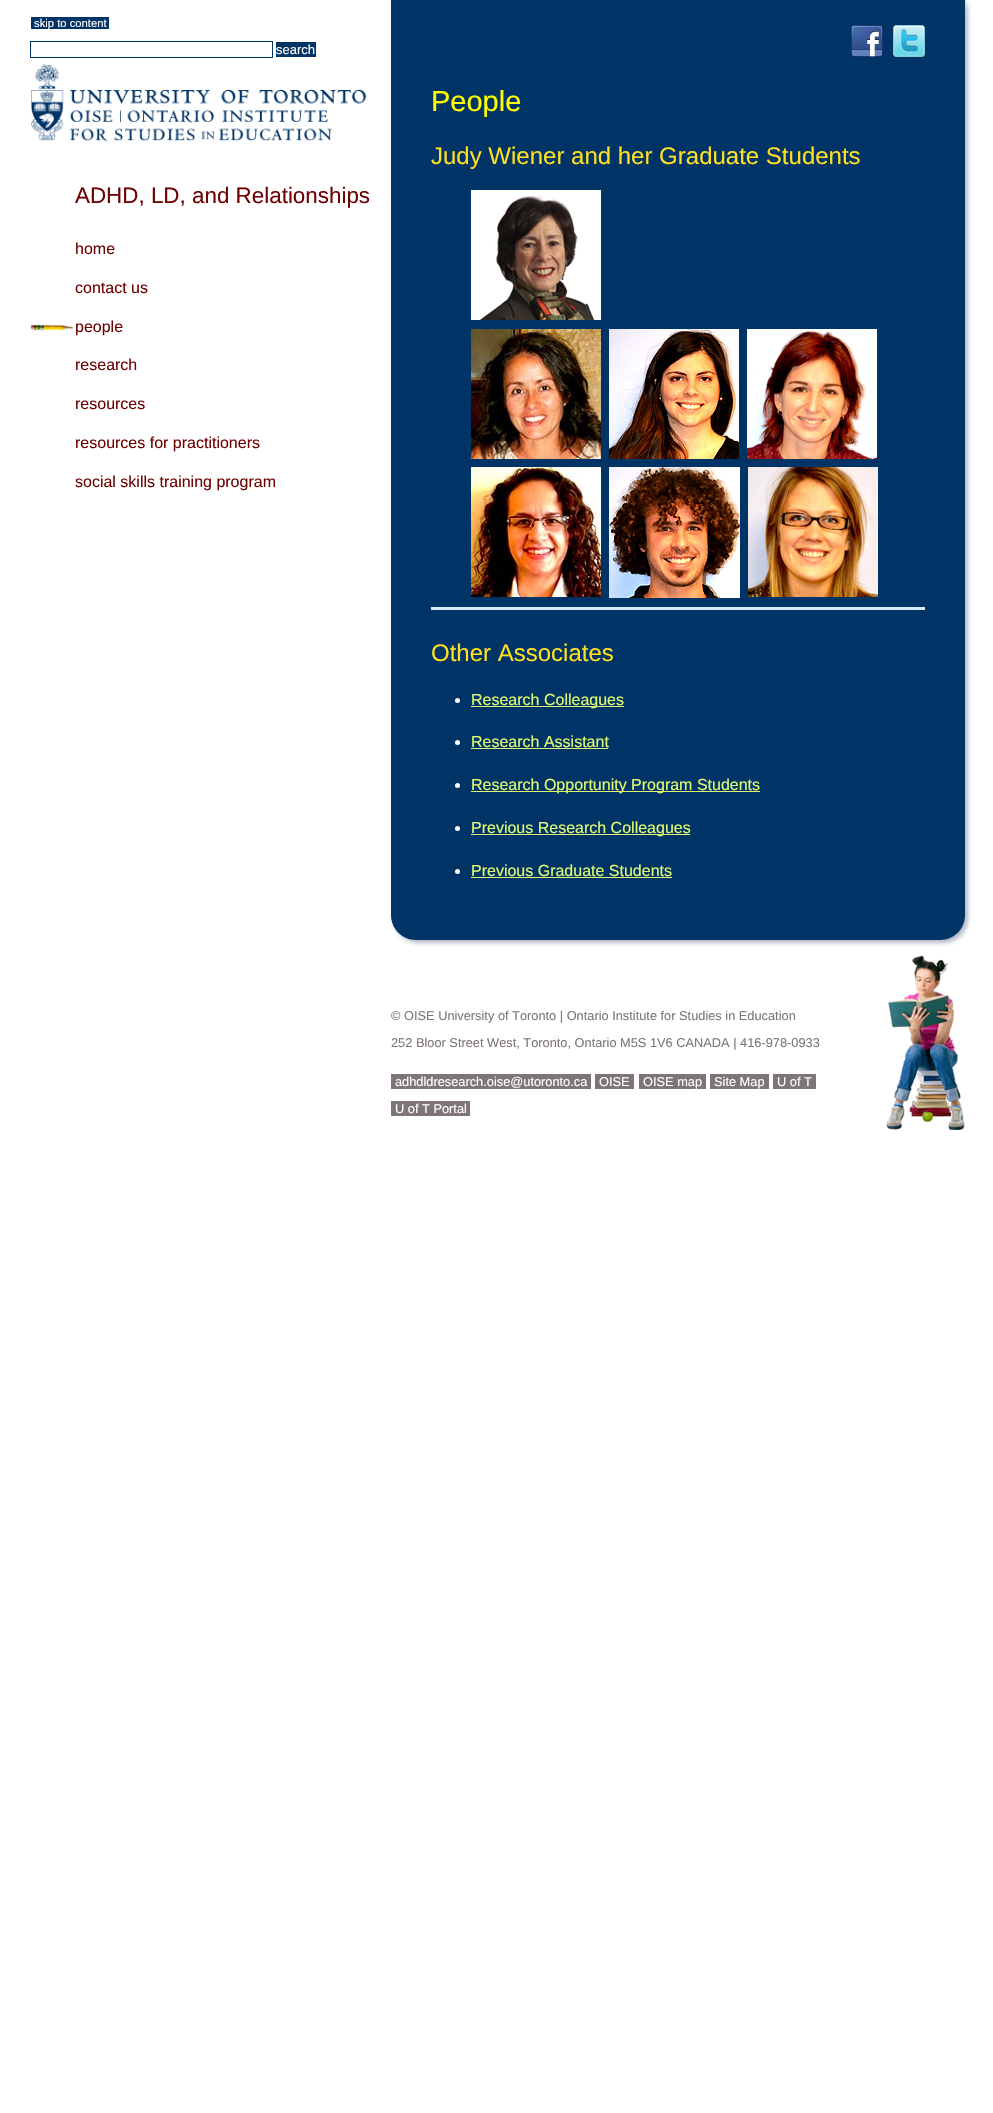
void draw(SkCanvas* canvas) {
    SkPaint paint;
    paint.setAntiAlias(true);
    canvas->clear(0xFFFFFFFF);
    paint.setColor(0xFF003366);
    canvas->drawRect(SkRect::MakeXYWH(31, 17, 78, 12), paint);
    SkFont font1(fontMgr->matchFamilyStyle("Liberation Sans", SkFontStyle::Normal()), 11.25f);
    font1.setSubpixel(true);
    paint.setColor(0xFFFFFFFF);
    canvas->drawString("skip to content", 34, 27, font1, paint);
    paint.setStyle(SkPaint::kStroke_Style);
    paint.setStrokeWidth(1);
    paint.setColor(0xFF003366);
    canvas->drawRect(SkRect::MakeXYWH(30.5f, 41.5f, 242, 16), paint);
    paint.setStyle(SkPaint::kFill_Style);
    canvas->drawRect(SkRect::MakeXYWH(276, 42, 40, 15), paint);
    SkFont font2(fontMgr->matchFamilyStyle("Liberation Sans", SkFontStyle::Normal()), 13);
    font2.setSubpixel(true);
    paint.setColor(0xFFFFFFFF);
    canvas->drawString("search", 276, 54, font2, paint);
    canvas->drawImageRect(SkImages::DeferredFromEncodedData(SkData::MakeFromFileName("img1.png")), SkRect::MakeXYWH(31, 64, 336, 78), SkSamplingOptions());
    SkFont font3(fontMgr->matchFamilyStyle("Liberation Sans", SkFontStyle::Normal()), 22.4f);
    font3.setSubpixel(true);
    paint.setColor(0xFF6E0303);
    canvas->drawString("ADHD, LD, and Relationships", 75, 203, font3, paint);
    SkFont font4(fontMgr->matchFamilyStyle("Liberation Sans", SkFontStyle::Normal()), 16);
    font4.setSubpixel(true);
    canvas->drawString("home", 75, 254, font4, paint);
    canvas->drawString("contact us", 75, 293, font4, paint);
    canvas->drawImageRect(SkImages::DeferredFromEncodedData(SkData::MakeFromFileName("img2.png")), SkRect::MakeXYWH(30, 324, 44, 7), SkSamplingOptions());
    canvas->drawString("people", 75, 332, font4, paint);
    canvas->drawString("research", 75, 370, font4, paint);
    canvas->drawString("resources", 75, 409, font4, paint);
    canvas->drawString("resources for practitioners", 75, 448, font4, paint);
    canvas->drawString("social skills training program", 75, 487, font4, paint);
    paint.setColor(0xFFB4B9C7);
    paint.setMaskFilter(SkMaskFilter::MakeBlur(kNormal_SkBlurStyle, 2));
    canvas->drawRoundRect(SkRect::MakeXYWH(394, -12, 574, 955), 25, 25, paint);
    paint.setMaskFilter(nullptr);
    paint.setColor(0xFF003366);
    canvas->drawPath(SkPathBuilder().moveTo(391, -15).lineTo(965, -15).lineTo(965, 915).cubicTo(965, 929, 954, 940, 940, 940).lineTo(416, 940).cubicTo(402, 940, 391, 929, 391, 915).close().detach(), paint);
    canvas->drawImageRect(SkImages::DeferredFromEncodedData(SkData::MakeFromFileName("img3.png")), SkRect::MakeXYWH(851, 25, 32, 32), SkSamplingOptions());
    canvas->drawImageRect(SkImages::DeferredFromEncodedData(SkData::MakeFromFileName("img4.png")), SkRect::MakeXYWH(893, 25, 32, 32), SkSamplingOptions());
    SkFont font5(fontMgr->matchFamilyStyle("Liberation Sans", SkFontStyle::Normal()), 29);
    font5.setSubpixel(true);
    paint.setColor(0xFFFFFF00);
    canvas->drawString("People", 431, 111, font5, paint);
    SkFont font6(fontMgr->matchFamilyStyle("Liberation Sans", SkFontStyle::Normal()), 24);
    font6.setSubpixel(true);
    paint.setColor(0xFFFEDF23);
    canvas->drawString("Judy Wiener and her Graduate Students", 431, 164, font6, paint);
    canvas->drawImageRect(SkImages::DeferredFromEncodedData(SkData::MakeFromFileName("img5.png")), SkRect::MakeXYWH(471, 190, 130, 130), SkSamplingOptions());
    canvas->drawImageRect(SkImages::DeferredFromEncodedData(SkData::MakeFromFileName("img6.png")), SkRect::MakeXYWH(471, 329, 130, 130), SkSamplingOptions());
    canvas->drawImageRect(SkImages::DeferredFromEncodedData(SkData::MakeFromFileName("img7.png")), SkRect::MakeXYWH(609, 329, 130, 130), SkSamplingOptions());
    canvas->drawImageRect(SkImages::DeferredFromEncodedData(SkData::MakeFromFileName("img8.png")), SkRect::MakeXYWH(747, 329, 130, 130), SkSamplingOptions());
    canvas->drawImageRect(SkImages::DeferredFromEncodedData(SkData::MakeFromFileName("img9.png")), SkRect::MakeXYWH(471, 467, 130, 130), SkSamplingOptions());
    canvas->drawImageRect(SkImages::DeferredFromEncodedData(SkData::MakeFromFileName("img10.png")), SkRect::MakeXYWH(609, 467, 131, 131), SkSamplingOptions());
    canvas->drawImageRect(SkImages::DeferredFromEncodedData(SkData::MakeFromFileName("img11.png")), SkRect::MakeXYWH(748, 467, 130, 130), SkSamplingOptions());
    paint.setColor(0xFFDBE9F7);
    canvas->drawRect(SkRect::MakeXYWH(431, 607, 494, 3), paint);
    paint.setColor(0xFFFEDF23);
    canvas->drawString("Other Associates", 431, 661, font6, paint);
    paint.setColor(0xFFFFFFFF);
    canvas->drawCircle(457.5f, 700.5f, 2.5f, paint);
    paint.setColor(0xFFE3FB73);
    canvas->drawRect(SkRect::MakeXYWH(471, 706, 153, 1), paint);
    canvas->drawString("Research Colleagues", 471, 705, font4, paint);
    paint.setColor(0xFFFFFFFF);
    canvas->drawCircle(457.5f, 742.5f, 2.5f, paint);
    paint.setColor(0xFFE3FB73);
    canvas->drawString("Research Assistant", 471, 747, font4, paint);
    canvas->drawRect(SkRect::MakeXYWH(471, 748, 137, 1), paint);
    paint.setColor(0xFFFFFFFF);
    canvas->drawCircle(457.5f, 785.5f, 2.5f, paint);
    paint.setColor(0xFFE3FB73);
    canvas->drawRect(SkRect::MakeXYWH(471, 791, 289, 1), paint);
    canvas->drawString("Research Opportunity Program Students", 471, 790, font4, paint);
    paint.setColor(0xFFFFFFFF);
    canvas->drawCircle(457.5f, 828.5f, 2.5f, paint);
    paint.setColor(0xFFE3FB73);
    canvas->drawRect(SkRect::MakeXYWH(471, 834, 219, 1), paint);
    canvas->drawString("Previous Research Colleagues", 471, 833, font4, paint);
    paint.setColor(0xFFFFFFFF);
    canvas->drawCircle(457.5f, 871.5f, 2.5f, paint);
    paint.setColor(0xFFE3FB73);
    canvas->drawString("Previous Graduate Students", 471, 876, font4, paint);
    canvas->drawRect(SkRect::MakeXYWH(471, 877, 201, 1), paint);
    canvas->drawImageRect(SkImages::DeferredFromEncodedData(SkData::MakeFromFileName("img12.png")), SkRect::MakeXYWH(886, 955, 79, 175), SkSamplingOptions());
    SkFont font7(fontMgr->matchFamilyStyle("Liberation Sans", SkFontStyle::Normal()), 12.8f);
    font7.setSubpixel(true);
    paint.setColor(0xFF7E7676);
    canvas->drawString("© OISE University of Toronto | Ontario Institute for Studies in Education", 391, 1020, font7, paint);
    canvas->drawString("252 Bloor Street West, Toronto, Ontario M5S 1V6 CANADA | 416-978-0933", 391, 1047, font7, paint);
    canvas->drawRect(SkRect::MakeXYWH(391, 1074, 200, 15), paint);
    paint.setColor(0xFFFFFFFF);
    canvas->drawString("adhdldresearch.oise@utoronto.ca", 395, 1086, font7, paint);
    paint.setColor(0xFF7E7676);
    canvas->drawRect(SkRect::MakeXYWH(595, 1074, 39, 15), paint);
    paint.setColor(0xFFFFFFFF);
    canvas->drawString("OISE", 599, 1086, font7, paint);
    paint.setColor(0xFF7E7676);
    canvas->drawRect(SkRect::MakeXYWH(639, 1074, 67, 15), paint);
    paint.setColor(0xFFFFFFFF);
    canvas->drawString("OISE map", 643, 1086, font7, paint);
    paint.setColor(0xFF7E7676);
    canvas->drawRect(SkRect::MakeXYWH(710, 1074, 59, 15), paint);
    paint.setColor(0xFFFFFFFF);
    canvas->drawString("Site Map", 714, 1086, font7, paint);
    paint.setColor(0xFF7E7676);
    canvas->drawRect(SkRect::MakeXYWH(773, 1074, 43, 15), paint);
    paint.setColor(0xFFFFFFFF);
    canvas->drawString("U of T", 777, 1086, font7, paint);
    paint.setColor(0xFF7E7676);
    canvas->drawRect(SkRect::MakeXYWH(391, 1101, 79, 15), paint);
    paint.setColor(0xFFFFFFFF);
    canvas->drawString("U of T Portal", 395, 1113, font7, paint);
}
